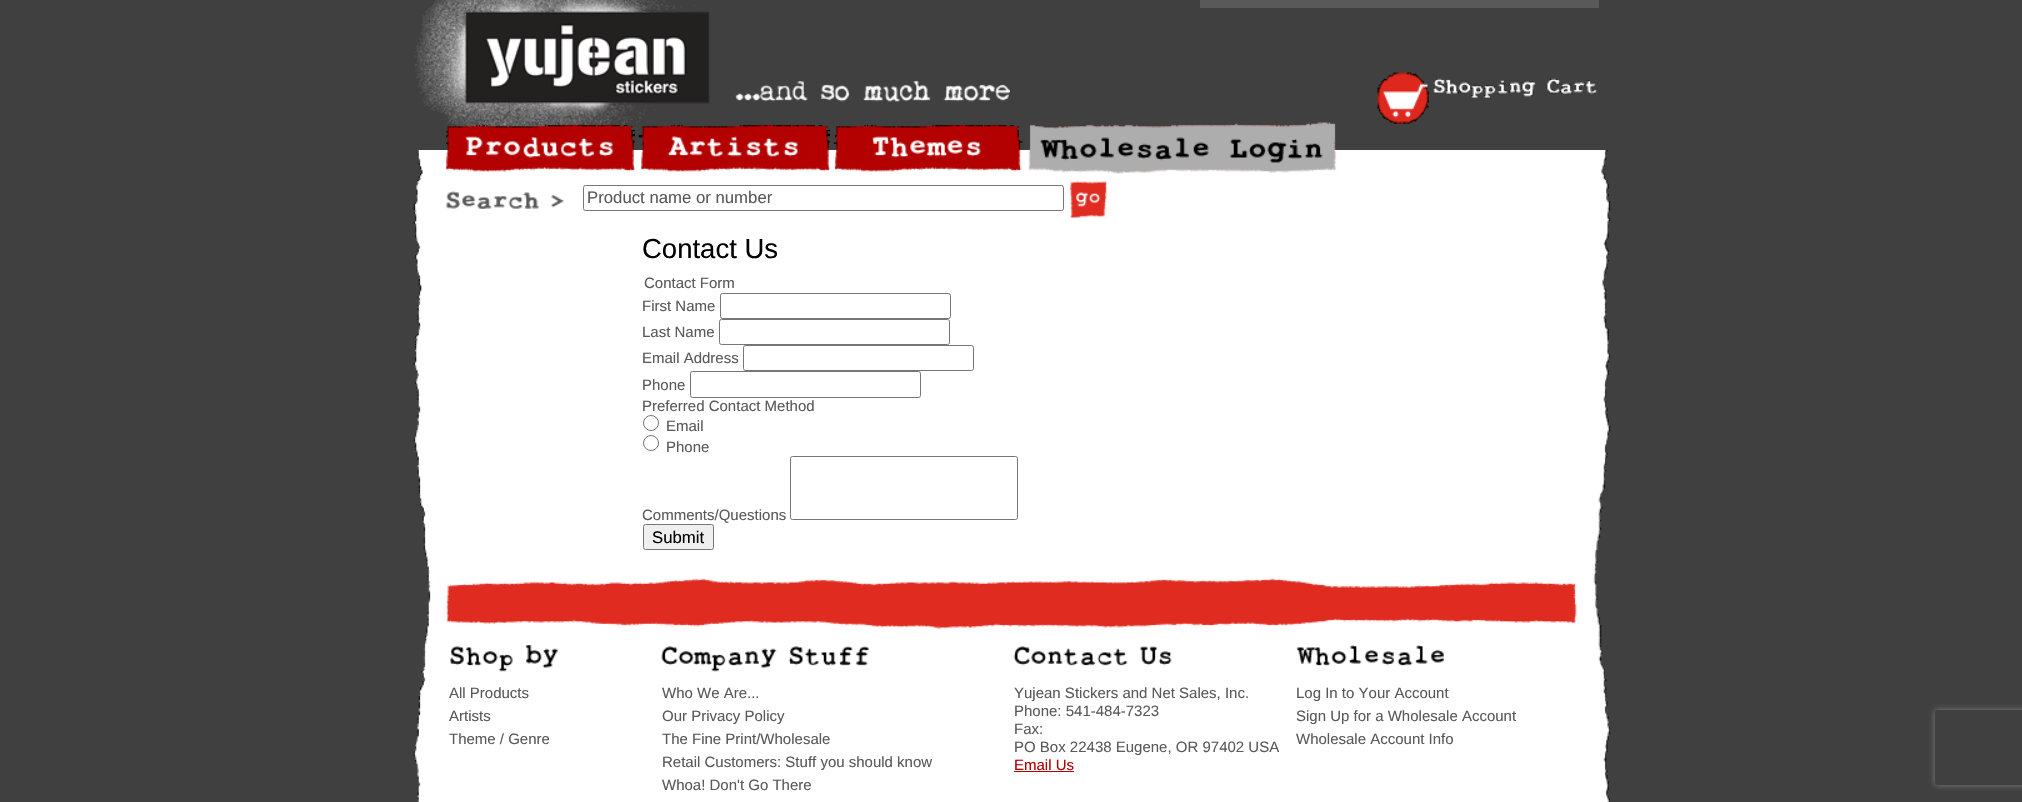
void draw(SkCanvas* canvas) {
    SkPaint paint;
    paint.setAntiAlias(true);
    canvas->clear(0xFF404040);
    canvas->drawImageRect(SkImages::DeferredFromEncodedData(SkData::MakeFromFileName("img1.png")), SkRect::MakeXYWH(414, 0, 596, 134), SkSamplingOptions());
    paint.setColor(0xFF595959);
    canvas->drawRect(SkRect::MakeXYWH(1200, 0, 399, 8), paint);
    canvas->drawImageRect(SkImages::DeferredFromEncodedData(SkData::MakeFromFileName("img2.png")), SkRect::MakeXYWH(1377, 72, 52, 52), SkSamplingOptions());
    canvas->drawImageRect(SkImages::DeferredFromEncodedData(SkData::MakeFromFileName("img3.png")), SkRect::MakeXYWH(1433, 78, 164, 20), SkSamplingOptions());
    canvas->drawImageRect(SkImages::DeferredFromEncodedData(SkData::MakeFromFileName("img4.png")), SkRect::MakeXYWH(413, 150, 1198, 652), SkSamplingOptions());
    canvas->drawImageRect(SkImages::DeferredFromEncodedData(SkData::MakeFromFileName("img5.png")), SkRect::MakeXYWH(446, 124, 189, 48), SkSamplingOptions());
    canvas->drawImageRect(SkImages::DeferredFromEncodedData(SkData::MakeFromFileName("img6.png")), SkRect::MakeXYWH(638, 124, 192, 48), SkSamplingOptions());
    canvas->drawImageRect(SkImages::DeferredFromEncodedData(SkData::MakeFromFileName("img7.png")), SkRect::MakeXYWH(833, 124, 190, 48), SkSamplingOptions());
    canvas->drawImageRect(SkImages::DeferredFromEncodedData(SkData::MakeFromFileName("img8.png")), SkRect::MakeXYWH(1026, 122, 311, 52), SkSamplingOptions());
    canvas->drawImageRect(SkImages::DeferredFromEncodedData(SkData::MakeFromFileName("img9.png")), SkRect::MakeXYWH(446, 191, 118, 18), SkSamplingOptions());
    paint.setStyle(SkPaint::kStroke_Style);
    paint.setStrokeWidth(1);
    paint.setColor(0xFF767676);
    canvas->drawRoundRect(SkRect::MakeXYWH(583.5f, 185.5f, 480, 25), 2, 2, paint);
    SkFont font1(fontMgr->matchFamilyStyle("Liberation Sans", SkFontStyle::Normal()), 16.75f);
    font1.setSubpixel(true);
    paint.setStyle(SkPaint::kFill_Style);
    paint.setColor(0xFF595959);
    canvas->drawString("Product name or number", 587, 203, font1, paint);
    canvas->drawImageRect(SkImages::DeferredFromEncodedData(SkData::MakeFromFileName("img10.png")), SkRect::MakeXYWH(1070, 181, 37, 37), SkSamplingOptions());
    SkFont font2(fontMgr->matchFamilyStyle("Liberation Sans", SkFontStyle::Normal()), 27.5f);
    font2.setSubpixel(true);
    paint.setColor(0xFF000000);
    canvas->drawString("Contact Us", 642, 258, font2, paint);
    SkFont font3(fontMgr->matchFamilyStyle("Liberation Sans", SkFontStyle::Normal()), 15);
    font3.setSubpixel(true);
    paint.setColor(0xFF595959);
    canvas->drawString("Contact Form", 644, 288, font3, paint);
    canvas->drawString("First Name", 642, 311, font3, paint);
    paint.setStyle(SkPaint::kStroke_Style);
    paint.setColor(0xFF767676);
    canvas->drawRoundRect(SkRect::MakeXYWH(720.5f, 293.5f, 230, 25), 2, 2, paint);
    paint.setStyle(SkPaint::kFill_Style);
    paint.setColor(0xFF595959);
    canvas->drawString("Last Name", 642, 337, font3, paint);
    paint.setStyle(SkPaint::kStroke_Style);
    paint.setColor(0xFF767676);
    canvas->drawRoundRect(SkRect::MakeXYWH(719.5f, 319.5f, 230, 25), 2, 2, paint);
    paint.setStyle(SkPaint::kFill_Style);
    paint.setColor(0xFF595959);
    canvas->drawString("Email Address", 642, 363, font3, paint);
    paint.setStyle(SkPaint::kStroke_Style);
    paint.setColor(0xFF767676);
    canvas->drawRoundRect(SkRect::MakeXYWH(743.5f, 345.5f, 230, 25), 2, 2, paint);
    paint.setStyle(SkPaint::kFill_Style);
    paint.setColor(0xFF595959);
    canvas->drawString("Phone", 642, 390, font3, paint);
    paint.setStyle(SkPaint::kStroke_Style);
    paint.setColor(0xFF767676);
    canvas->drawRoundRect(SkRect::MakeXYWH(690.5f, 371.5f, 230, 26), 2, 2, paint);
    paint.setStyle(SkPaint::kFill_Style);
    paint.setColor(0xFF595959);
    canvas->drawString("Preferred Contact Method", 642, 411, font3, paint);
    paint.setStyle(SkPaint::kStroke_Style);
    paint.setColor(0xFF767676);
    canvas->drawCircle(651, 423, 7.5f, paint);
    paint.setStyle(SkPaint::kFill_Style);
    paint.setColor(0xFF595959);
    canvas->drawString("Email", 666, 431, font3, paint);
    paint.setStyle(SkPaint::kStroke_Style);
    paint.setColor(0xFF767676);
    canvas->drawCircle(651, 443, 7.5f, paint);
    paint.setStyle(SkPaint::kFill_Style);
    paint.setColor(0xFF595959);
    canvas->drawString("Phone", 666, 452, font3, paint);
    canvas->drawString("Comments/Questions", 642, 520, font3, paint);
    paint.setStyle(SkPaint::kStroke_Style);
    paint.setColor(0xFF767676);
    canvas->drawRoundRect(SkRect::MakeXYWH(790.5f, 456.5f, 227, 63), 2, 2, paint);
    paint.setStyle(SkPaint::kFill_Style);
    paint.setColor(0xFFEFEFEF);
    canvas->drawRoundRect(SkRect::MakeXYWH(643.5f, 524.5f, 70, 25), 2, 2, paint);
    paint.setStyle(SkPaint::kStroke_Style);
    paint.setColor(0xFF767676);
    canvas->drawRoundRect(SkRect::MakeXYWH(643.5f, 524.5f, 70, 25), 2, 2, paint);
    paint.setStyle(SkPaint::kFill_Style);
    paint.setColor(0xFF000000);
    canvas->drawString("Submit", 652, 543, font1, paint);
    canvas->drawImageRect(SkImages::DeferredFromEncodedData(SkData::MakeFromFileName("img11.png")), SkRect::MakeXYWH(446, 578, 1131, 51), SkSamplingOptions());
    canvas->drawImageRect(SkImages::DeferredFromEncodedData(SkData::MakeFromFileName("img12.png")), SkRect::MakeXYWH(450, 645, 108, 27), SkSamplingOptions());
    paint.setColor(0xFF595959);
    canvas->drawString("All Products", 449, 698, font3, paint);
    canvas->drawString("Artists", 449, 721, font3, paint);
    canvas->drawString("Theme / Genre", 449, 744, font3, paint);
    canvas->drawImageRect(SkImages::DeferredFromEncodedData(SkData::MakeFromFileName("img13.png")), SkRect::MakeXYWH(661, 646, 208, 26), SkSamplingOptions());
    canvas->drawString("Who We Are...", 662, 698, font3, paint);
    canvas->drawString("Our Privacy Policy", 662, 721, font3, paint);
    canvas->drawString("The Fine Print/Wholesale", 662, 744, font3, paint);
    canvas->drawString("Retail Customers: Stuff you should know", 662, 767, font3, paint);
    canvas->drawString("Whoa! Don't Go There", 662, 790, font3, paint);
    canvas->drawImageRect(SkImages::DeferredFromEncodedData(SkData::MakeFromFileName("img14.png")), SkRect::MakeXYWH(1013, 646, 159, 20), SkSamplingOptions());
    canvas->drawString("Yujean Stickers and Net Sales, Inc.", 1014, 698, font3, paint);
    canvas->drawString("Phone: 541-484-7323", 1014, 716, font3, paint);
    canvas->drawString("Fax:", 1014, 734, font3, paint);
    canvas->drawString("PO Box 22438 Eugene, OR 97402 USA", 1014, 752, font3, paint);
    paint.setColor(0xFFB30000);
    canvas->drawString("Email Us", 1014, 770, font3, paint);
    canvas->drawRect(SkRect::MakeXYWH(1014, 771, 60, 1), paint);
    canvas->drawImageRect(SkImages::DeferredFromEncodedData(SkData::MakeFromFileName("img15.png")), SkRect::MakeXYWH(1296, 645, 148, 21), SkSamplingOptions());
    paint.setColor(0xFF595959);
    canvas->drawString("Log In to Your Account", 1296, 698, font3, paint);
    canvas->drawString("Sign Up for a Wholesale Account", 1296, 721, font3, paint);
    canvas->drawString("Wholesale Account Info", 1296, 744, font3, paint);
    canvas->save();
    canvas->clipPath(SkPathBuilder(SkPathFillType::kEvenOdd).moveTo(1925, 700).lineTo(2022, 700).lineTo(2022, 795).lineTo(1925, 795).close().moveTo(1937.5f, 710).lineTo(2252.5f, 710).cubicTo(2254, 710, 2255, 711, 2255, 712.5f).lineTo(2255, 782.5f).cubicTo(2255, 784, 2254, 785, 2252.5f, 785).lineTo(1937.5f, 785).cubicTo(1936, 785, 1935, 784, 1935, 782.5f).lineTo(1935, 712.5f).cubicTo(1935, 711, 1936, 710, 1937.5f, 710).close().detach(), true);
    paint.setColor(0xFF808080);
    paint.setMaskFilter(SkMaskFilter::MakeBlur(kNormal_SkBlurStyle, 3));
    canvas->drawRoundRect(SkRect::MakeXYWH(1935, 710, 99, 75), 2.5f, 2.5f, paint);
    paint.setMaskFilter(nullptr);
    canvas->restore();
}
